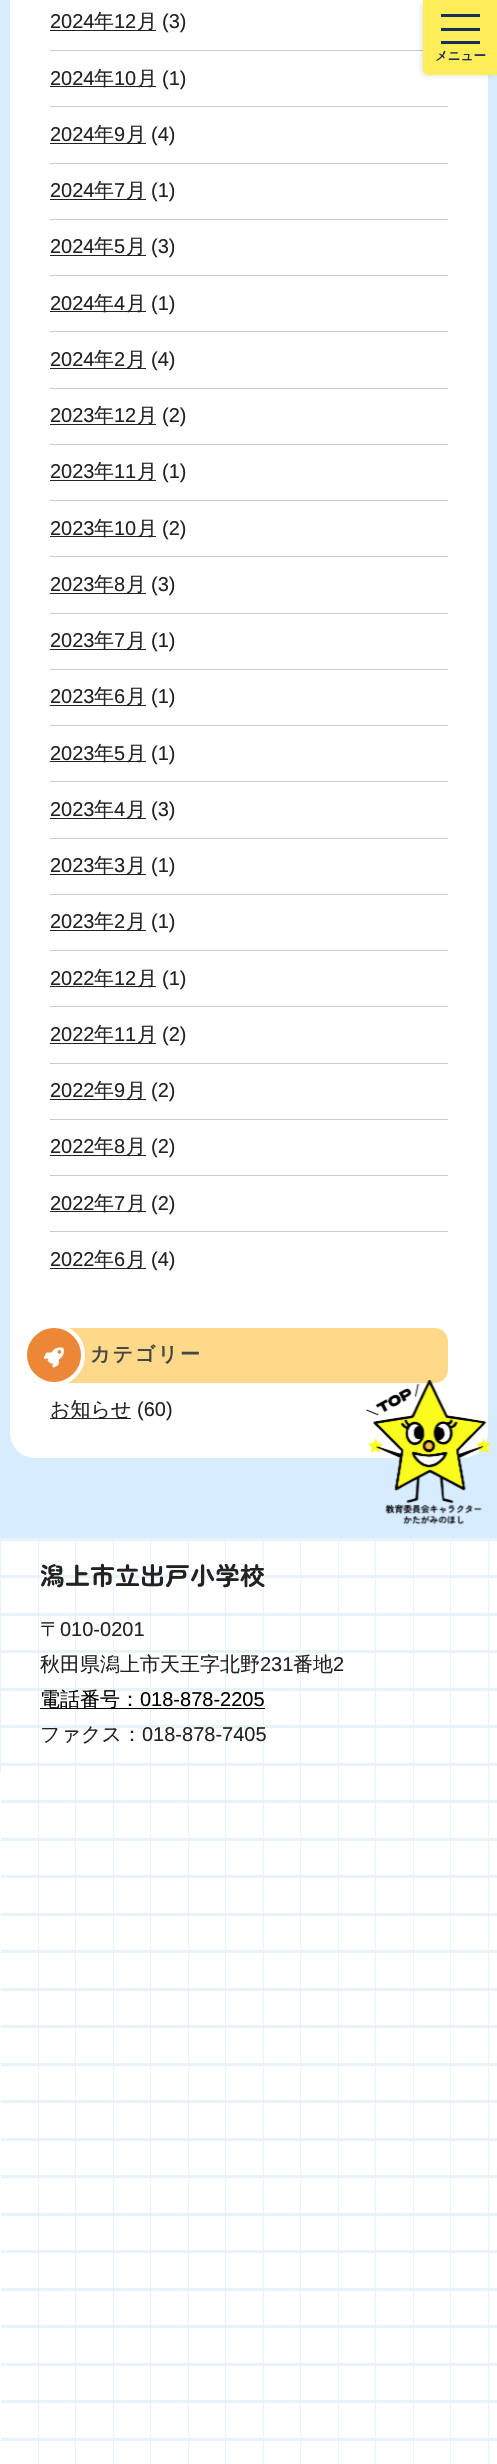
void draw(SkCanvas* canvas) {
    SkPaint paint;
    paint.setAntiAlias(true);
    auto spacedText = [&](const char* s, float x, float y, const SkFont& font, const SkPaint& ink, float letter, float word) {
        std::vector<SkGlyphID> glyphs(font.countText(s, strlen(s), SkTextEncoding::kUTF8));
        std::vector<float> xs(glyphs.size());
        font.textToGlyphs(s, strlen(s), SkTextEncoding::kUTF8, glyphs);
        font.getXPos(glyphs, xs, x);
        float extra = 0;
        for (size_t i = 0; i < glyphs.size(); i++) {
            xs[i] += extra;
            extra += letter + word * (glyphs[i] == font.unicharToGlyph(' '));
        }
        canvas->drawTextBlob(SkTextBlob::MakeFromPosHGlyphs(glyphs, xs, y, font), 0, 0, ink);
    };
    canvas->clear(0xFFFFFFFF);
    paint.setColor(0xFFD7EDFF);
    canvas->drawRect(SkRect::MakeXYWH(0, 0, 497, 1538), paint);
    paint.setColor(0xFFFFFFFF);
    canvas->drawRoundRect(SkRect::MakeXYWH(10, -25, 478, 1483), 25, 25, paint);
    SkFont font1(fontMgr->matchFamilyStyle("Liberation Sans", SkFontStyle::Normal()), 20);
    font1.setSubpixel(true);
    paint.setColor(0xFF222222);
    canvas->drawString("2024", 50, 28, font1, paint);
    canvas->drawRect(SkRect::MakeXYWH(50, 30, 106, 1), paint);
    SkFont font2(fontMgr->matchFamilyStyle("WenQuanYi Zen Hei", SkFontStyle(500, SkFontStyle::kNormal_Width, SkFontStyle::kUpright_Slant)), 20);
    font2.setSubpixel(true);
    canvas->drawString("年", 94, 28, font2, paint);
    canvas->drawString("12", 114, 28, font1, paint);
    canvas->drawString("月", 137, 28, font2, paint);
    canvas->drawString("(3)", 162, 28, font1, paint);
    paint.setColor(0xFFCCCCCC);
    canvas->drawRect(SkRect::MakeXYWH(50, 50, 373, 1), paint);
    paint.setColor(0xFF222222);
    canvas->drawString("2024", 50, 85, font1, paint);
    canvas->drawRect(SkRect::MakeXYWH(50, 86, 106, 1), paint);
    canvas->drawString("年", 94, 85, font2, paint);
    canvas->drawString("10", 114, 85, font1, paint);
    canvas->drawString("月", 137, 85, font2, paint);
    canvas->drawString("(1)", 162, 85, font1, paint);
    paint.setColor(0xFFCCCCCC);
    canvas->drawRect(SkRect::MakeXYWH(50, 106, 398, 1), paint);
    paint.setColor(0xFF222222);
    canvas->drawString("2024", 50, 141, font1, paint);
    canvas->drawRect(SkRect::MakeXYWH(50, 143, 96, 1), paint);
    canvas->drawString("年", 94, 141, font2, paint);
    canvas->drawString("9", 114, 141, font1, paint);
    canvas->drawString("月", 126, 141, font2, paint);
    canvas->drawString("(4)", 151, 141, font1, paint);
    paint.setColor(0xFFCCCCCC);
    canvas->drawRect(SkRect::MakeXYWH(50, 163, 398, 1), paint);
    paint.setColor(0xFF222222);
    canvas->drawString("2024", 50, 197, font1, paint);
    canvas->drawRect(SkRect::MakeXYWH(50, 199, 96, 1), paint);
    canvas->drawString("年", 94, 197, font2, paint);
    canvas->drawString("7", 114, 197, font1, paint);
    canvas->drawString("月", 126, 197, font2, paint);
    canvas->drawString("(1)", 151, 197, font1, paint);
    paint.setColor(0xFFCCCCCC);
    canvas->drawRect(SkRect::MakeXYWH(50, 219, 398, 1), paint);
    paint.setColor(0xFF222222);
    canvas->drawString("2024", 50, 253, font1, paint);
    canvas->drawRect(SkRect::MakeXYWH(50, 255, 96, 1), paint);
    canvas->drawString("年", 94, 253, font2, paint);
    canvas->drawString("5", 114, 253, font1, paint);
    canvas->drawString("月", 126, 253, font2, paint);
    canvas->drawString("(3)", 151, 253, font1, paint);
    paint.setColor(0xFFCCCCCC);
    canvas->drawRect(SkRect::MakeXYWH(50, 275, 398, 1), paint);
    paint.setColor(0xFF222222);
    canvas->drawString("2024", 50, 310, font1, paint);
    canvas->drawRect(SkRect::MakeXYWH(50, 311, 96, 1), paint);
    canvas->drawString("年", 94, 310, font2, paint);
    canvas->drawString("4", 114, 310, font1, paint);
    canvas->drawString("月", 126, 310, font2, paint);
    canvas->drawString("(1)", 151, 310, font1, paint);
    paint.setColor(0xFFCCCCCC);
    canvas->drawRect(SkRect::MakeXYWH(50, 331, 398, 1), paint);
    paint.setColor(0xFF222222);
    canvas->drawString("2024", 50, 366, font1, paint);
    canvas->drawRect(SkRect::MakeXYWH(50, 368, 96, 1), paint);
    canvas->drawString("年", 94, 366, font2, paint);
    canvas->drawString("2", 114, 366, font1, paint);
    canvas->drawString("月", 126, 366, font2, paint);
    canvas->drawString("(4)", 151, 366, font1, paint);
    paint.setColor(0xFFCCCCCC);
    canvas->drawRect(SkRect::MakeXYWH(50, 388, 398, 1), paint);
    paint.setColor(0xFF222222);
    canvas->drawString("2023", 50, 422, font1, paint);
    canvas->drawRect(SkRect::MakeXYWH(50, 424, 106, 1), paint);
    canvas->drawString("年", 94, 422, font2, paint);
    canvas->drawString("12", 114, 422, font1, paint);
    canvas->drawString("月", 137, 422, font2, paint);
    canvas->drawString("(2)", 162, 422, font1, paint);
    paint.setColor(0xFFCCCCCC);
    canvas->drawRect(SkRect::MakeXYWH(50, 444, 398, 1), paint);
    paint.setColor(0xFF222222);
    canvas->drawString("2023", 50, 478, font1, paint);
    canvas->drawRect(SkRect::MakeXYWH(50, 480, 106, 1), paint);
    canvas->drawString("年", 94, 478, font2, paint);
    canvas->drawString("11", 114, 478, font1, paint);
    canvas->drawString("月", 137, 478, font2, paint);
    canvas->drawString("(1)", 162, 478, font1, paint);
    paint.setColor(0xFFCCCCCC);
    canvas->drawRect(SkRect::MakeXYWH(50, 500, 398, 1), paint);
    paint.setColor(0xFF222222);
    canvas->drawString("2023", 50, 535, font1, paint);
    canvas->drawRect(SkRect::MakeXYWH(50, 536, 106, 1), paint);
    canvas->drawString("年", 94, 535, font2, paint);
    canvas->drawString("10", 114, 535, font1, paint);
    canvas->drawString("月", 137, 535, font2, paint);
    canvas->drawString("(2)", 162, 535, font1, paint);
    paint.setColor(0xFFCCCCCC);
    canvas->drawRect(SkRect::MakeXYWH(50, 556, 398, 1), paint);
    paint.setColor(0xFF222222);
    canvas->drawString("2023", 50, 591, font1, paint);
    canvas->drawRect(SkRect::MakeXYWH(50, 593, 96, 1), paint);
    canvas->drawString("年", 94, 591, font2, paint);
    canvas->drawString("8", 114, 591, font1, paint);
    canvas->drawString("月", 126, 591, font2, paint);
    canvas->drawString("(3)", 151, 591, font1, paint);
    paint.setColor(0xFFCCCCCC);
    canvas->drawRect(SkRect::MakeXYWH(50, 613, 398, 1), paint);
    paint.setColor(0xFF222222);
    canvas->drawString("2023", 50, 647, font1, paint);
    canvas->drawRect(SkRect::MakeXYWH(50, 649, 96, 1), paint);
    canvas->drawString("年", 94, 647, font2, paint);
    canvas->drawString("7", 114, 647, font1, paint);
    canvas->drawString("月", 126, 647, font2, paint);
    canvas->drawString("(1)", 151, 647, font1, paint);
    paint.setColor(0xFFCCCCCC);
    canvas->drawRect(SkRect::MakeXYWH(50, 669, 398, 1), paint);
    paint.setColor(0xFF222222);
    canvas->drawString("2023", 50, 703, font1, paint);
    canvas->drawRect(SkRect::MakeXYWH(50, 705, 96, 1), paint);
    canvas->drawString("年", 94, 703, font2, paint);
    canvas->drawString("6", 114, 703, font1, paint);
    canvas->drawString("月", 126, 703, font2, paint);
    canvas->drawString("(1)", 151, 703, font1, paint);
    paint.setColor(0xFFCCCCCC);
    canvas->drawRect(SkRect::MakeXYWH(50, 725, 398, 1), paint);
    paint.setColor(0xFF222222);
    canvas->drawString("2023", 50, 760, font1, paint);
    canvas->drawRect(SkRect::MakeXYWH(50, 761, 96, 1), paint);
    canvas->drawString("年", 94, 760, font2, paint);
    canvas->drawString("5", 114, 760, font1, paint);
    canvas->drawString("月", 126, 760, font2, paint);
    canvas->drawString("(1)", 151, 760, font1, paint);
    paint.setColor(0xFFCCCCCC);
    canvas->drawRect(SkRect::MakeXYWH(50, 781, 398, 1), paint);
    paint.setColor(0xFF222222);
    canvas->drawString("2023", 50, 816, font1, paint);
    canvas->drawRect(SkRect::MakeXYWH(50, 818, 96, 1), paint);
    canvas->drawString("年", 94, 816, font2, paint);
    canvas->drawString("4", 114, 816, font1, paint);
    canvas->drawString("月", 126, 816, font2, paint);
    canvas->drawString("(3)", 151, 816, font1, paint);
    paint.setColor(0xFFCCCCCC);
    canvas->drawRect(SkRect::MakeXYWH(50, 838, 398, 1), paint);
    paint.setColor(0xFF222222);
    canvas->drawString("2023", 50, 872, font1, paint);
    canvas->drawRect(SkRect::MakeXYWH(50, 874, 96, 1), paint);
    canvas->drawString("年", 94, 872, font2, paint);
    canvas->drawString("3", 114, 872, font1, paint);
    canvas->drawString("月", 126, 872, font2, paint);
    canvas->drawString("(1)", 151, 872, font1, paint);
    paint.setColor(0xFFCCCCCC);
    canvas->drawRect(SkRect::MakeXYWH(50, 894, 398, 1), paint);
    paint.setColor(0xFF222222);
    canvas->drawString("2023", 50, 928, font1, paint);
    canvas->drawRect(SkRect::MakeXYWH(50, 930, 96, 1), paint);
    canvas->drawString("年", 94, 928, font2, paint);
    canvas->drawString("2", 114, 928, font1, paint);
    canvas->drawString("月", 126, 928, font2, paint);
    canvas->drawString("(1)", 151, 928, font1, paint);
    paint.setColor(0xFFCCCCCC);
    canvas->drawRect(SkRect::MakeXYWH(50, 950, 398, 1), paint);
    paint.setColor(0xFF222222);
    canvas->drawString("2022", 50, 985, font1, paint);
    canvas->drawRect(SkRect::MakeXYWH(50, 986, 106, 1), paint);
    canvas->drawString("年", 94, 985, font2, paint);
    canvas->drawString("12", 114, 985, font1, paint);
    canvas->drawString("月", 137, 985, font2, paint);
    canvas->drawString("(1)", 162, 985, font1, paint);
    paint.setColor(0xFFCCCCCC);
    canvas->drawRect(SkRect::MakeXYWH(50, 1006, 398, 1), paint);
    paint.setColor(0xFF222222);
    canvas->drawString("2022", 50, 1041, font1, paint);
    canvas->drawRect(SkRect::MakeXYWH(50, 1043, 106, 1), paint);
    canvas->drawString("年", 94, 1041, font2, paint);
    canvas->drawString("11", 114, 1041, font1, paint);
    canvas->drawString("月", 137, 1041, font2, paint);
    canvas->drawString("(2)", 162, 1041, font1, paint);
    paint.setColor(0xFFCCCCCC);
    canvas->drawRect(SkRect::MakeXYWH(50, 1063, 398, 1), paint);
    paint.setColor(0xFF222222);
    canvas->drawString("2022", 50, 1097, font1, paint);
    canvas->drawRect(SkRect::MakeXYWH(50, 1099, 96, 1), paint);
    canvas->drawString("年", 94, 1097, font2, paint);
    canvas->drawString("9", 114, 1097, font1, paint);
    canvas->drawString("月", 126, 1097, font2, paint);
    canvas->drawString("(2)", 151, 1097, font1, paint);
    paint.setColor(0xFFCCCCCC);
    canvas->drawRect(SkRect::MakeXYWH(50, 1119, 398, 1), paint);
    paint.setColor(0xFF222222);
    canvas->drawString("2022", 50, 1153, font1, paint);
    canvas->drawRect(SkRect::MakeXYWH(50, 1155, 96, 1), paint);
    canvas->drawString("年", 94, 1153, font2, paint);
    canvas->drawString("8", 114, 1153, font1, paint);
    canvas->drawString("月", 126, 1153, font2, paint);
    canvas->drawString("(2)", 151, 1153, font1, paint);
    paint.setColor(0xFFCCCCCC);
    canvas->drawRect(SkRect::MakeXYWH(50, 1175, 398, 1), paint);
    paint.setColor(0xFF222222);
    canvas->drawString("2022", 50, 1210, font1, paint);
    canvas->drawRect(SkRect::MakeXYWH(50, 1211, 96, 1), paint);
    canvas->drawString("年", 94, 1210, font2, paint);
    canvas->drawString("7", 114, 1210, font1, paint);
    canvas->drawString("月", 126, 1210, font2, paint);
    canvas->drawString("(2)", 151, 1210, font1, paint);
    paint.setColor(0xFFCCCCCC);
    canvas->drawRect(SkRect::MakeXYWH(50, 1231, 398, 1), paint);
    paint.setColor(0xFF222222);
    canvas->drawString("2022", 50, 1266, font1, paint);
    canvas->drawRect(SkRect::MakeXYWH(50, 1268, 96, 1), paint);
    canvas->drawString("年", 94, 1266, font2, paint);
    canvas->drawString("6", 114, 1266, font1, paint);
    canvas->drawString("月", 126, 1266, font2, paint);
    canvas->drawString("(4)", 151, 1266, font1, paint);
    paint.setColor(0xFFFFD98A);
    canvas->drawPath(SkPathBuilder().moveTo(50, 1328).lineTo(435, 1328).cubicTo(442, 1328, 448, 1334, 448, 1341).lineTo(448, 1370).cubicTo(448, 1377, 442, 1383, 435, 1383).lineTo(50, 1383).close().detach(), paint);
    paint.setColor(0xFFEB8736);
    canvas->drawCircle(54, 1355, 29, paint);
    paint.setStyle(SkPaint::kStroke_Style);
    paint.setStrokeWidth(4);
    paint.setColor(0xFFFFFFFF);
    canvas->drawCircle(54, 1355, 29, paint);
    canvas->drawImageRect(SkImages::DeferredFromEncodedData(SkData::MakeFromFileName("img1.png")), SkRect::MakeXYWH(43, 1347, 21, 21), SkSamplingOptions());
    SkFont font3(fontMgr->matchFamilyStyle("WenQuanYi Zen Hei", SkFontStyle::Bold()), 20);
    font3.setSubpixel(true);
    paint.setStyle(SkPaint::kFill_Style);
    paint.setColor(0xFF474747);
    spacedText("カテゴリー", 90, 1361, font3, paint, 2, 0);
    paint.setColor(0xFF222222);
    canvas->drawRect(SkRect::MakeXYWH(50, 1418, 81, 1), paint);
    canvas->drawString("お知らせ", 50, 1416, font2, paint);
    canvas->drawString("(60)", 137, 1416, font1, paint);
    paint.setColor(0x1A000000);
    paint.setMaskFilter(SkMaskFilter::MakeBlur(kNormal_SkBlurStyle, 2));
    canvas->drawRoundRect(SkRect::MakeXYWH(421, 1, 75, 75), 6, 6, paint);
    paint.setMaskFilter(nullptr);
    paint.setColor(0xFFFFED58);
    canvas->drawPath(SkPathBuilder().moveTo(423, 0).lineTo(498, 0).lineTo(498, 75).lineTo(429, 75).cubicTo(425.5f, 75, 423, 72.5f, 423, 69).close().detach(), paint);
    paint.setColor(0xFF172E59);
    canvas->drawRect(SkRect::MakeXYWH(441, 28, 39, 3), paint);
    canvas->drawRect(SkRect::MakeXYWH(441, 14, 39, 3), paint);
    canvas->drawRect(SkRect::MakeXYWH(441, 41, 39, 3), paint);
    SkFont font4(fontMgr->matchFamilyStyle("WenQuanYi Zen Hei", SkFontStyle::Bold()), 12.5f);
    font4.setSubpixel(true);
    canvas->drawString("メニュー", 435, 60, font4, paint);
    canvas->drawImageRect(SkImages::DeferredFromEncodedData(SkData::MakeFromFileName("img2.png")), SkRect::MakeXYWH(366, 1380, 126, 145), SkSamplingOptions());
    canvas->drawImageRect(SkImages::DeferredFromEncodedData(SkData::MakeFromFileName("img3.png")), SkRect::MakeXYWH(0, 1538, 489, 926), SkSamplingOptions());
    canvas->drawImageRect(SkImages::DeferredFromEncodedData(SkData::MakeFromFileName("img4.png")), SkRect::MakeXYWH(1, 1538, 496, 903), SkSamplingOptions());
    SkFont font5(fontMgr->matchFamilyStyle("Zen Maru Gothic", SkFontStyle::Bold()), 25);
    font5.setSubpixel(true);
    paint.setColor(0xFF222222);
    canvas->drawString("潟上市立出戸小学校", 40, 1585, font5, paint);
    canvas->drawString("〒", 40, 1636, font2, paint);
    canvas->drawString("010-0201", 60, 1636, font1, paint);
    canvas->drawString("秋田県潟上市天王字北野", 40, 1671, font2, paint);
    canvas->drawString("231", 260, 1671, font1, paint);
    canvas->drawString("番地", 293, 1671, font2, paint);
    canvas->drawString("2", 333, 1671, font1, paint);
    paint.setColor(0xFF000000);
    canvas->drawRect(SkRect::MakeXYWH(40, 1708, 225, 1), paint);
    canvas->drawString("電話番号：", 40, 1706, font2, paint);
    canvas->drawString("018-878-2205", 140, 1706, font1, paint);
    paint.setColor(0xFF222222);
    canvas->drawString("ファクス：", 40, 1741, font2, paint);
    canvas->drawString("018-878-7405", 142, 1741, font1, paint);
    paint.setColor(0xFFFFFFFF);
    canvas->drawRect(SkRect::MakeXYWH(0, 1773, 1, 691), paint);
}
